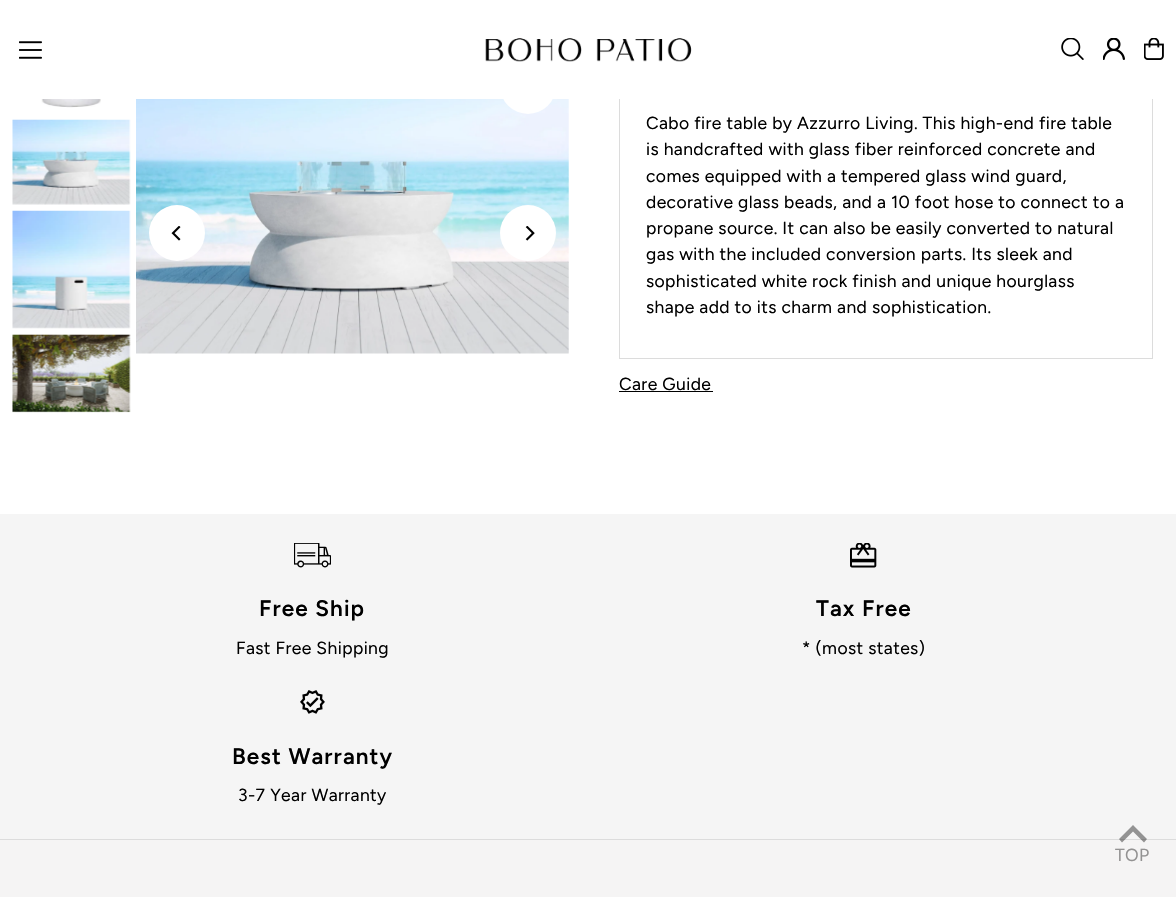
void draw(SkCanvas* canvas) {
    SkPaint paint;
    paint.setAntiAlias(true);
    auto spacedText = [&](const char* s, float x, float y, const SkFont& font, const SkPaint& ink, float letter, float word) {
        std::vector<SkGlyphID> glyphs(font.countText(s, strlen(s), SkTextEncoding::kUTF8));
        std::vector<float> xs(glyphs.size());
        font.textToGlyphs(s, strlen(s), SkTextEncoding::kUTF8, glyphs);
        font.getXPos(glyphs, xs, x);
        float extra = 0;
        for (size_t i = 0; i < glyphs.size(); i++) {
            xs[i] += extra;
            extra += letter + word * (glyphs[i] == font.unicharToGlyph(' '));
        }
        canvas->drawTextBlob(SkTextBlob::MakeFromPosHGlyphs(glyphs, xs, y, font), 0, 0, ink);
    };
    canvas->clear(0xFFFFFFFF);
    paint.setStyle(SkPaint::kStroke_Style);
    paint.setStrokeWidth(1);
    paint.setColor(0xFFDCDCDC);
    canvas->drawRect(SkRect::MakeXYWH(619.5f, 58.5f, 533, 300), paint);
    paint.setStyle(SkPaint::kFill_Style);
    paint.setColor(0xFFFFFFFF);
    canvas->drawRect(SkRect::MakeXYWH(619, 58, 534, 41), paint);
    canvas->drawImageRect(SkImages::DeferredFromEncodedData(SkData::MakeFromFileName("img1.png")), SkRect::MakeXYWH(19, 41, 23, 18), SkSamplingOptions());
    canvas->drawImageRect(SkImages::DeferredFromEncodedData(SkData::MakeFromFileName("img10.png")), SkRect::MakeXYWH(136, 99, 433, 255), SkSamplingOptions());
    canvas->drawCircle(528, 86, 28, paint);
    canvas->drawImageRect(SkImages::DeferredFromEncodedData(SkData::MakeFromFileName("img2.png")), SkRect::MakeXYWH(485, 38, 207, 24), SkSamplingOptions());
    canvas->drawImageRect(SkImages::DeferredFromEncodedData(SkData::MakeFromFileName("img3.png")), SkRect::MakeXYWH(1061, 38, 23, 22), SkSamplingOptions());
    canvas->drawImageRect(SkImages::DeferredFromEncodedData(SkData::MakeFromFileName("img4.png")), SkRect::MakeXYWH(1103, 38, 22, 22), SkSamplingOptions());
    canvas->drawImageRect(SkImages::DeferredFromEncodedData(SkData::MakeFromFileName("img5.png")), SkRect::MakeXYWH(1144, 38, 20, 22), SkSamplingOptions());
    canvas->drawImageRect(SkImages::DeferredFromEncodedData(SkData::MakeFromFileName("img6.png")), SkRect::MakeXYWH(41, 99, 60, 9), SkSamplingOptions());
    canvas->drawImageRect(SkImages::DeferredFromEncodedData(SkData::MakeFromFileName("img7.png")), SkRect::MakeXYWH(12, 119, 119, 86), SkSamplingOptions());
    canvas->drawImageRect(SkImages::DeferredFromEncodedData(SkData::MakeFromFileName("img8.png")), SkRect::MakeXYWH(12, 210, 119, 119), SkSamplingOptions());
    canvas->drawImageRect(SkImages::DeferredFromEncodedData(SkData::MakeFromFileName("img9.png")), SkRect::MakeXYWH(12, 334, 119, 79), SkSamplingOptions());
    canvas->drawCircle(177, 233, 28, paint);
    canvas->drawImageRect(SkImages::DeferredFromEncodedData(SkData::MakeFromFileName("img11.png")), SkRect::MakeXYWH(171, 226, 10, 15), SkSamplingOptions());
    canvas->drawCircle(528, 233, 28, paint);
    canvas->drawImageRect(SkImages::DeferredFromEncodedData(SkData::MakeFromFileName("img12.png")), SkRect::MakeXYWH(525, 226, 10, 15), SkSamplingOptions());
    SkFont font1(fontMgr->matchFamilyStyle("Figtree", SkFontStyle::Normal()), 17.5f);
    font1.setSubpixel(true);
    paint.setColor(0xFF000000);
    spacedText("Cabo fire table by Azzurro Living. This high-end fire table", 646, 129, font1, paint, 0.38f, 0);
    spacedText("is handcrafted with glass fiber reinforced concrete and", 646, 155, font1, paint, 0.38f, 0);
    spacedText("comes equipped with a tempered glass wind guard,", 646, 182, font1, paint, 0.38f, 0);
    spacedText("decorative glass beads, and a 10 foot hose to connect to a", 646, 208, font1, paint, 0.38f, 0);
    spacedText("propane source. It can also be easily converted to natural", 646, 234, font1, paint, 0.38f, 0);
    spacedText("gas with the included conversion parts. Its sleek and", 646, 260, font1, paint, 0.38f, 0);
    spacedText("sophisticated white rock finish and unique hourglass", 646, 287, font1, paint, 0.38f, 0);
    spacedText("shape add to its charm and sophistication.", 646, 313, font1, paint, 0.38f, 0);
    spacedText("Care Guide", 619, 390, font1, paint, 0.4f, 0);
    canvas->drawRect(SkRect::MakeXYWH(619, 391, 94, 1), paint);
    paint.setColor(0xFFF5F5F5);
    canvas->drawRect(SkRect::MakeXYWH(0, 514, 1176, 325), paint);
    canvas->drawImageRect(SkImages::DeferredFromEncodedData(SkData::MakeFromFileName("img13.png")), SkRect::MakeXYWH(294, 543, 37, 25), SkSamplingOptions());
    SkFont font2(fontMgr->matchFamilyStyle("Figtree", SkFontStyle(600, SkFontStyle::kNormal_Width, SkFontStyle::kUpright_Slant)), 22.5f);
    font2.setSubpixel(true);
    paint.setColor(0xFF000000);
    spacedText("Free Ship", 259, 616, font2, paint, 1.1f, 0);
    spacedText("Fast Free Shipping", 236, 654, font1, paint, 0.4f, 0);
    canvas->drawImageRect(SkImages::DeferredFromEncodedData(SkData::MakeFromFileName("img14.png")), SkRect::MakeXYWH(850, 543, 27, 25), SkSamplingOptions());
    spacedText("Tax Free", 816, 616, font2, paint, 1.1f, 0);
    spacedText("* (most states)", 802, 654, font1, paint, 0.4f, 0);
    canvas->drawImageRect(SkImages::DeferredFromEncodedData(SkData::MakeFromFileName("img15.png")), SkRect::MakeXYWH(300, 690, 25, 24), SkSamplingOptions());
    spacedText("Best Warranty", 232, 764, font2, paint, 1.1f, 0);
    spacedText("3-7 Year Warranty", 238, 801, font1, paint, 0.4f, 0);
    paint.setColor(0xFFF5F4F4);
    canvas->drawRect(SkRect::MakeXYWH(0, 840, 1176, 57), paint);
    paint.setColor(0xFFDCDCDC);
    canvas->drawRect(SkRect::MakeXYWH(0, 839, 1176, 1), paint);
    paint.setColor(0x66000000);
    canvas->drawPath(SkPathBuilder().moveTo(1133, 825).lineTo(1119, 839).lineTo(1122, 842.5f).lineTo(1133, 831.5f).lineTo(1144, 842.5f).lineTo(1147, 839).close().detach(), paint);
    paint.setColor(0xFF939292);
    spacedText("TOP", 1115, 861, font1, paint, 0.4f, 0);
}
